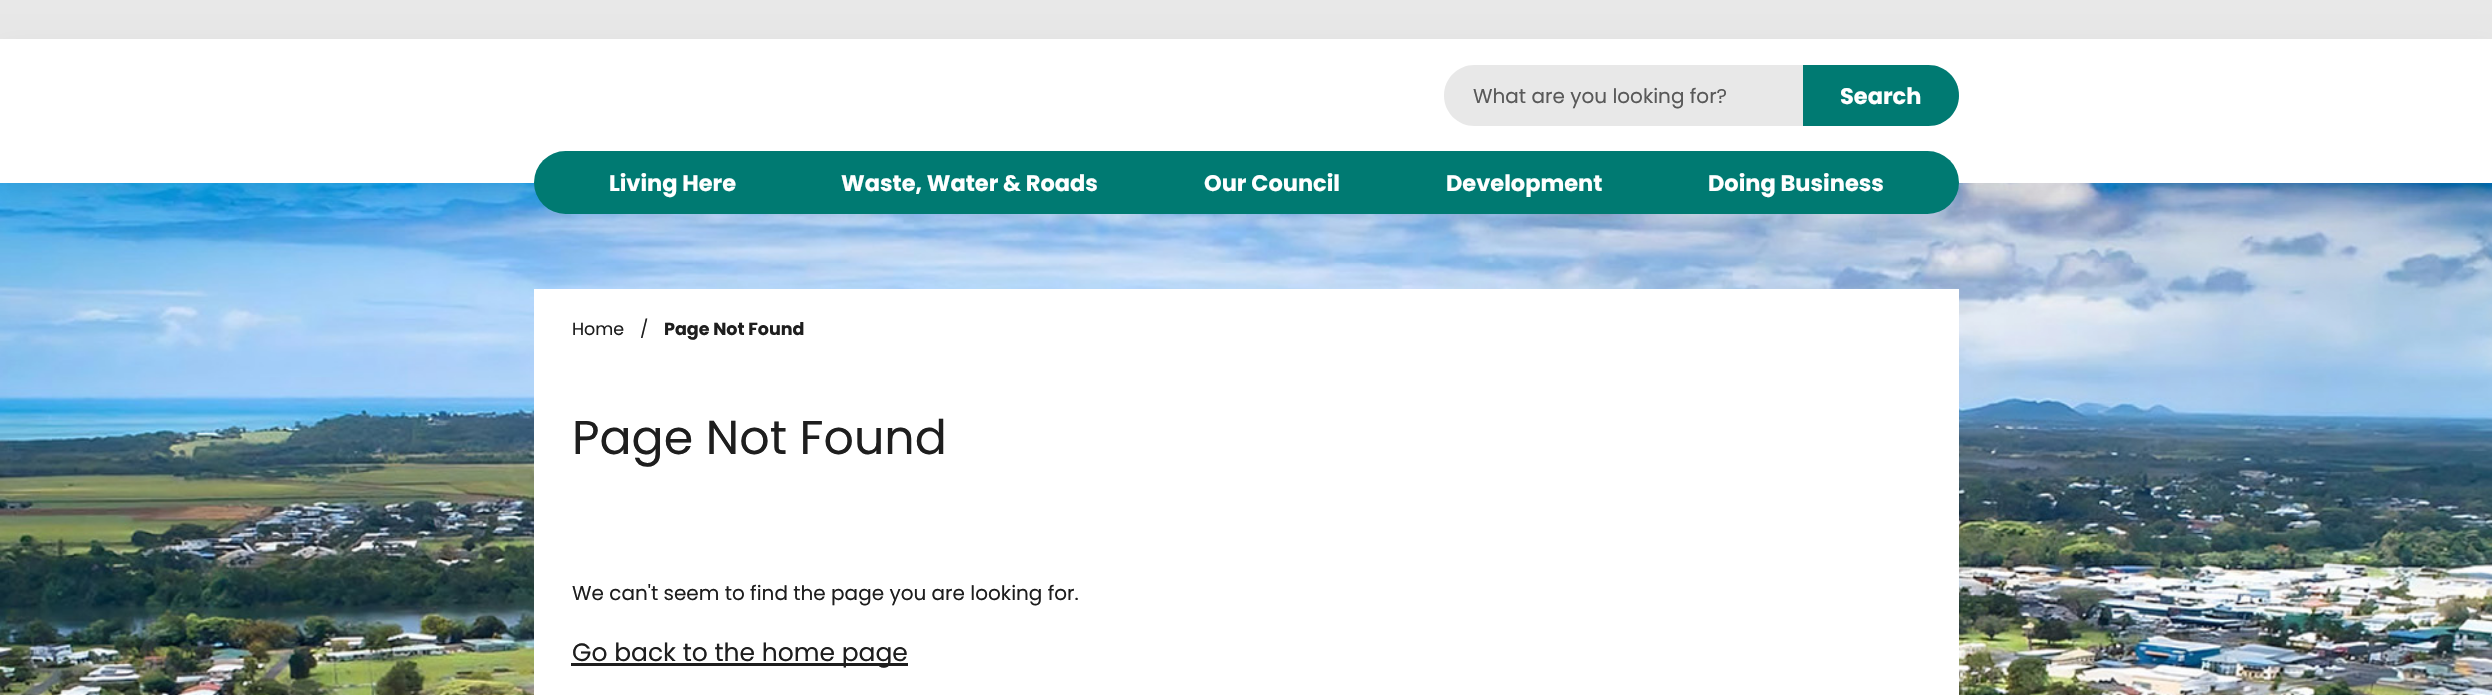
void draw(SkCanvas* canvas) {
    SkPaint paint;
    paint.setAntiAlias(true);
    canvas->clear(0xFFFFFFFF);
    canvas->drawImageRect(SkImages::DeferredFromEncodedData(SkData::MakeFromFileName("img1.png")), SkRect::MakeXYWH(0, 183, 2492, 512), SkSamplingOptions());
    paint.setColor(0xFFE8E8E8);
    canvas->drawRect(SkRect::MakeXYWH(0, 0, 2492, 39), paint);
    paint.setColor(0x14000000);
    paint.setMaskFilter(SkMaskFilter::MakeBlur(kNormal_SkBlurStyle, 12.5f));
    canvas->drawRect(SkRect::MakeXYWH(0, 51, 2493, 144), paint);
    paint.setMaskFilter(nullptr);
    paint.setColor(0xFFFFFFFF);
    canvas->drawRect(SkRect::MakeXYWH(0, 39, 2492, 144), paint);
    paint.setColor(0xFFE8E8E8);
    canvas->drawPath(SkPathBuilder().moveTo(1474.5f, 65).lineTo(1803, 65).lineTo(1803, 126).lineTo(1474.5f, 126).cubicTo(1457.5f, 126, 1444, 112.5f, 1444, 95.5f).cubicTo(1444, 78.5f, 1457.5f, 65, 1474.5f, 65).close().detach(), paint);
    SkFont font1(fontMgr->matchFamilyStyle("Poppins", SkFontStyle::Normal()), 20);
    font1.setSubpixel(true);
    paint.setColor(0xFF595959);
    canvas->drawString("What are you looking for?", 1473, 103, font1, paint);
    paint.setColor(0xFF007A72);
    canvas->drawPath(SkPathBuilder().moveTo(1803, 65).lineTo(1928.5f, 65).cubicTo(1945.5f, 65, 1959, 78.5f, 1959, 95.5f).cubicTo(1959, 112.5f, 1945.5f, 126, 1928.5f, 126).lineTo(1803, 126).close().detach(), paint);
    SkFont font2(fontMgr->matchFamilyStyle("Poppins", SkFontStyle::Bold()), 22.5f);
    font2.setSubpixel(true);
    paint.setColor(0xFFFFFFFF);
    canvas->drawString("Search", 1840, 104, font2, paint);
    paint.setColor(0xFF007A72);
    canvas->drawRoundRect(SkRect::MakeXYWH(534, 151, 1425, 63), 31.5f, 31.5f, paint);
    paint.setColor(0xFFFFFFFF);
    canvas->drawString("Living Here", 609, 191, font2, paint);
    canvas->drawString("Waste, Water & Roads", 841, 191, font2, paint);
    canvas->drawString("Our Council", 1204, 191, font2, paint);
    canvas->drawString("Development", 1446, 191, font2, paint);
    canvas->drawString("Doing Business", 1708, 191, font2, paint);
    canvas->drawRect(SkRect::MakeXYWH(534, 289, 1425, 406), paint);
    SkFont font3(fontMgr->matchFamilyStyle("Poppins", SkFontStyle::Normal()), 17.5f);
    font3.setSubpixel(true);
    paint.setColor(0xFF1E1E1E);
    canvas->drawString("Home", 572, 335, font3, paint);
    canvas->drawString("/", 640, 335, font3, paint);
    SkFont font4(fontMgr->matchFamilyStyle("Poppins", SkFontStyle::Bold()), 17.5f);
    font4.setSubpixel(true);
    canvas->drawString("Page Not Found", 664, 335, font4, paint);
    SkFont font5(fontMgr->matchFamilyStyle("Poppins", SkFontStyle::Normal()), 47.5f);
    font5.setSubpixel(true);
    canvas->drawString("Page Not Found", 572, 454, font5, paint);
    canvas->drawString("We can't seem to find the page you are looking for.", 572, 600, font1, paint);
    canvas->drawRect(SkRect::MakeXYWH(571, 663, 337, 3), paint);
    SkFont font6(fontMgr->matchFamilyStyle("Poppins", SkFontStyle::Normal()), 25);
    font6.setSubpixel(true);
    canvas->drawString("Go back to the home page", 572, 661, font6, paint);
}
